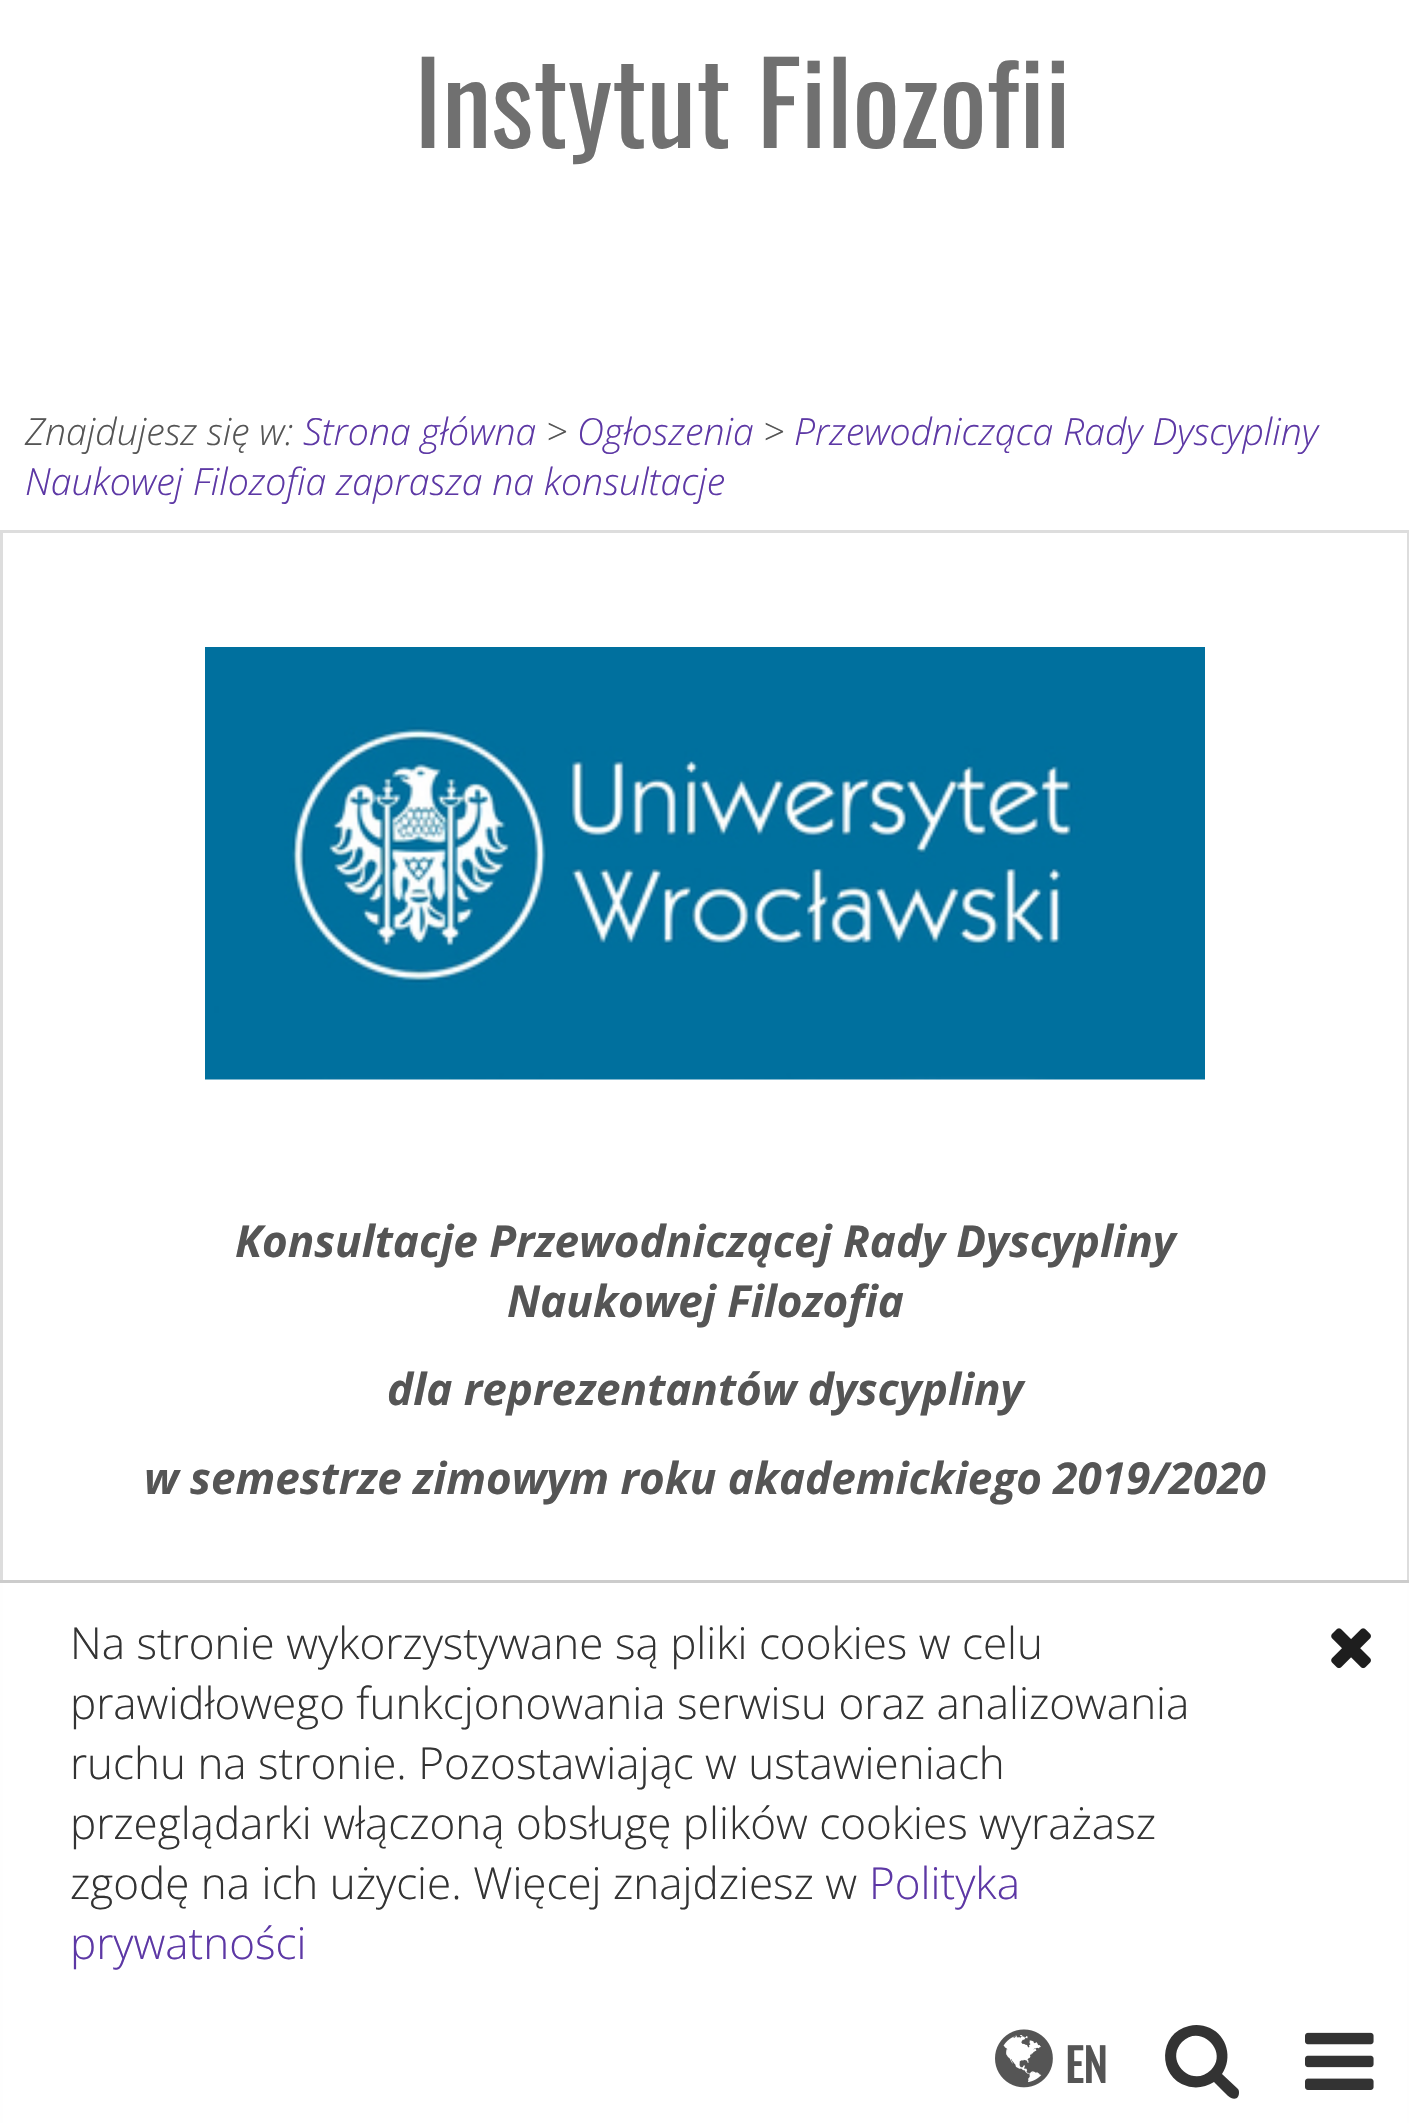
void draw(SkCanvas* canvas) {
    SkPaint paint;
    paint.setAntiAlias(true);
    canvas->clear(0xFFFFFFFF);
    SkFont font1(fontMgr->matchFamilyStyle("Oswald", SkFontStyle::Normal()), 112.5f);
    font1.setSubpixel(true);
    paint.setColor(0xFF707070);
    canvas->drawString("Instytut Filozofii", 414, 148, font1, paint);
    SkFont font2(fontMgr->matchFamilyStyle("Open Sans", SkFontStyle(300, SkFontStyle::kNormal_Width, SkFontStyle::kItalic_Slant)), 37.4f);
    font2.setSubpixel(true);
    paint.setColor(0xFF555555);
    canvas->drawString("Znajdujesz się w:", 25, 445, font2, paint);
    paint.setColor(0xFF5D38A5);
    canvas->drawString("Strona główna", 303, 445, font2, paint);
    paint.setColor(0xFF555555);
    canvas->drawString(">", 546, 445, font2, paint);
    paint.setColor(0xFF5D38A5);
    canvas->drawString("Ogłoszenia", 577, 445, font2, paint);
    paint.setColor(0xFF555555);
    canvas->drawString(">", 763, 445, font2, paint);
    paint.setColor(0xFF5D38A5);
    canvas->drawString("Przewodnicząca Rady Dyscypliny", 794, 445, font2, paint);
    canvas->drawString("Naukowej Filozofia zaprasza na konsultacje", 25, 495, font2, paint);
    paint.setStyle(SkPaint::kStroke_Style);
    paint.setStrokeWidth(3);
    paint.setColor(0xFFDDDDDD);
    canvas->drawRect(SkRect::MakeXYWH(1.5f, 531.5f, 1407, 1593), paint);
    canvas->drawImageRect(SkImages::DeferredFromEncodedData(SkData::MakeFromFileName("img1.png")), SkRect::MakeXYWH(205, 647, 1000, 433), SkSamplingOptions());
    SkFont font3(fontMgr->matchFamilyStyle("Open Sans", SkFontStyle::BoldItalic()), 44);
    font3.setSubpixel(true);
    paint.setStyle(SkPaint::kFill_Style);
    paint.setColor(0xFF555555);
    canvas->drawString("Konsultacje Przewodniczącej Rady Dyscypliny", 235, 1257, font3, paint);
    canvas->drawString("Naukowej Filozofia", 507, 1317, font3, paint);
    canvas->drawString("dla reprezentantów dyscypliny", 387, 1405, font3, paint);
    canvas->drawString("w semestrze zimowym roku akademickiego 2019/2020", 144, 1494, font3, paint);
    paint.setColor(0xF2FFFFFF);
    canvas->drawRect(SkRect::MakeXYWH(0, 1583, 1409, 540), paint);
    paint.setColor(0xFFCCCCCC);
    canvas->drawRect(SkRect::MakeXYWH(0, 1580, 1409, 3), paint);
    SkFont font4(fontMgr->matchFamilyStyle("Open Sans", SkFontStyle(300, SkFontStyle::kNormal_Width, SkFontStyle::kUpright_Slant)), 44);
    font4.setSubpixel(true);
    paint.setColor(0xFF333333);
    canvas->drawString("Na stronie wykorzystywane są pliki cookies w celu", 70, 1659, font4, paint);
    canvas->drawString("prawidłowego funkcjonowania serwisu oraz analizowania", 70, 1719, font4, paint);
    canvas->drawString("ruchu na stronie. Pozostawiając w ustawieniach", 70, 1779, font4, paint);
    canvas->drawString("przeglądarki włączoną obsługę plików cookies wyrażasz", 70, 1839, font4, paint);
    canvas->drawString("zgodę na ich użycie. Więcej znajdziesz w", 70, 1899, font4, paint);
    paint.setColor(0xFF5D38A5);
    canvas->drawString("Polityka", 869, 1899, font4, paint);
    canvas->drawString("prywatności", 70, 1959, font4, paint);
    canvas->drawImageRect(SkImages::DeferredFromEncodedData(SkData::MakeFromFileName("img2.png")), SkRect::MakeXYWH(1331, 1628, 40, 41), SkSamplingOptions());
    canvas->drawImageRect(SkImages::DeferredFromEncodedData(SkData::MakeFromFileName("img3.png")), SkRect::MakeXYWH(995, 2029, 58, 59), SkSamplingOptions());
    SkFont font5(fontMgr->matchFamilyStyle("Oswald", SkFontStyle::Bold()), 45);
    font5.setSubpixel(true);
    paint.setColor(0xFF555555);
    canvas->drawString("EN", 1065, 2083, font5, paint);
    paint.setColor(0xFF333333);
    canvas->drawPath(SkPathBuilder().moveTo(1211, 2070).cubicTo(1229, 2052, 1201, 2023, 1182, 2042).cubicTo(1164, 2061, 1192, 2089, 1211, 2070).close().moveTo(1239, 2093).cubicTo(1239, 2095, 1238, 2097, 1237, 2098).cubicTo(1232, 2101, 1227, 2095, 1224, 2092).lineTo(1214, 2082).cubicTo(1206, 2087, 1196, 2089, 1187, 2086).cubicTo(1157, 2077, 1158, 2033, 1189, 2026).cubicTo(1196, 2024, 1203, 2025, 1210, 2028).cubicTo(1227, 2036, 1233, 2058, 1222, 2074).lineTo(1238, 2089).cubicTo(1239, 2090, 1239, 2092, 1239, 2093).close().detach(), paint);
    canvas->drawImageRect(SkImages::DeferredFromEncodedData(SkData::MakeFromFileName("img4.png")), SkRect::MakeXYWH(1305, 2032, 69, 58), SkSamplingOptions());
}
